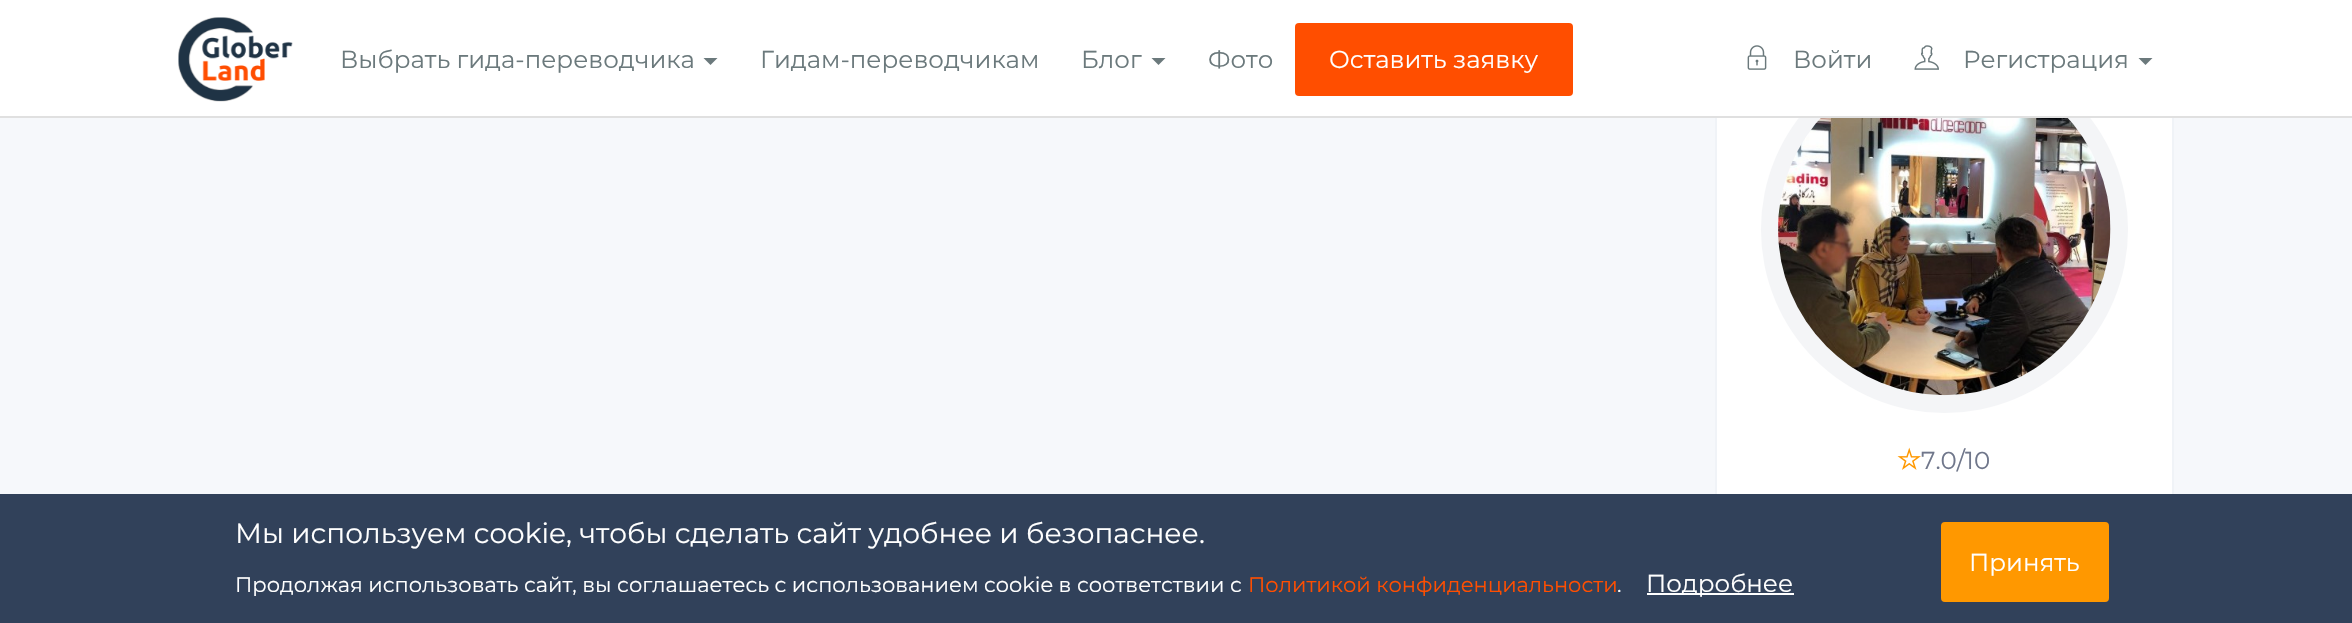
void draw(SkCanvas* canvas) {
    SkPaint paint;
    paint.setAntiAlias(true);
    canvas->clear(0xFFF6F8FB);
    paint.setColor(0xFFFFFFFF);
    canvas->drawRect(SkRect::MakeXYWH(1717, 118, 455, 376), paint);
    paint.setStyle(SkPaint::kStroke_Style);
    paint.setStrokeWidth(2);
    paint.setColor(0xFFF0F3F7);
    canvas->drawRect(SkRect::MakeXYWH(1716, 19, 457, 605), paint);
    paint.setStyle(SkPaint::kFill_Style);
    paint.setColor(0xFFF4F5F7);
    canvas->drawCircle(1944.5f, 229.5f, 183.5f, paint);
    paint.setColor(0xFFFFFFFF);
    canvas->drawRect(SkRect::MakeXYWH(0, 0, 2352, 116), paint);
    paint.setColor(0xFFE0E0E0);
    canvas->drawRect(SkRect::MakeXYWH(0, 116, 2352, 2), paint);
    canvas->drawImageRect(SkImages::DeferredFromEncodedData(SkData::MakeFromFileName("img1.png")), SkRect::MakeXYWH(178, 17, 115, 85), SkSamplingOptions());
    SkFont font1(fontMgr->matchFamilyStyle("Montserrat", SkFontStyle::Normal()), 24.5f);
    font1.setSubpixel(true);
    paint.setColor(0xFF6B797C);
    canvas->drawString("Выбрать гида-переводчика", 340, 68, font1, paint);
    canvas->drawPath(SkPathBuilder().moveTo(703.5f, 58).lineTo(717.5f, 58).lineTo(710.5f, 65).close().detach(), paint);
    canvas->drawString("Гидам-переводчикам", 760, 68, font1, paint);
    canvas->drawString("Блог", 1081, 68, font1, paint);
    canvas->drawPath(SkPathBuilder().moveTo(1151.5f, 58).lineTo(1165.5f, 58).lineTo(1158.5f, 65).close().detach(), paint);
    canvas->drawString("Фото", 1208, 68, font1, paint);
    paint.setColor(0xFFFF4E00);
    canvas->drawRoundRect(SkRect::MakeXYWH(1295, 23, 278, 73), 4, 4, paint);
    paint.setColor(0xFFFFFFFF);
    canvas->drawString("Оставить заявку", 1329, 68, font1, paint);
    canvas->drawImageRect(SkImages::DeferredFromEncodedData(SkData::MakeFromFileName("img2.png")), SkRect::MakeXYWH(1747, 45, 20, 25), SkSamplingOptions());
    paint.setColor(0xFF6B797C);
    canvas->drawString("Войти", 1793, 68, font1, paint);
    canvas->drawImageRect(SkImages::DeferredFromEncodedData(SkData::MakeFromFileName("img3.png")), SkRect::MakeXYWH(1914, 45, 25, 25), SkSamplingOptions());
    canvas->drawString("Регистрация", 1963, 68, font1, paint);
    canvas->drawPath(SkPathBuilder().moveTo(2138.5f, 58).lineTo(2152.5f, 58).lineTo(2145.5f, 65).close().detach(), paint);
    canvas->drawImageRect(SkImages::DeferredFromEncodedData(SkData::MakeFromFileName("img4.png")), SkRect::MakeXYWH(1778, 118, 333, 278), SkSamplingOptions());
    canvas->drawImageRect(SkImages::DeferredFromEncodedData(SkData::MakeFromFileName("img5.png")), SkRect::MakeXYWH(1897, 447, 24, 23), SkSamplingOptions());
    paint.setColor(0xFF70778B);
    canvas->drawString("7.0/10", 1921, 469, font1, paint);
    paint.setColor(0xFF31415A);
    canvas->drawRect(SkRect::MakeXYWH(0, 494, 2352, 129), paint);
    SkFont font2(fontMgr->matchFamilyStyle("Montserrat", SkFontStyle::Normal()), 28);
    font2.setSubpixel(true);
    paint.setColor(0xFFFFFFFF);
    canvas->drawString("Мы используем cookie, чтобы сделать сайт удобнее и безопаснее.", 235, 543, font2, paint);
    SkFont font3(fontMgr->matchFamilyStyle("Montserrat", SkFontStyle::Normal()), 21);
    font3.setSubpixel(true);
    canvas->drawString("Продолжая использовать сайт, вы соглашаетесь с использованием cookie в соответствии с", 235, 592, font3, paint);
    paint.setColor(0xFFFF4E00);
    canvas->drawString("Политикой конфиденциальности", 1248, 592, font3, paint);
    paint.setColor(0xFFFFFFFF);
    canvas->drawString(".", 1617, 592, font3, paint);
    canvas->drawRect(SkRect::MakeXYWH(1647, 593, 147, 2), paint);
    canvas->drawString("Подробнее", 1646, 592, font1, paint);
    paint.setColor(0xFFFF9800);
    canvas->drawRoundRect(SkRect::MakeXYWH(1942, 523, 166, 78), 3, 3, paint);
    paint.setStyle(SkPaint::kStroke_Style);
    canvas->drawRoundRect(SkRect::MakeXYWH(1942, 523, 166, 78), 3, 3, paint);
    paint.setStyle(SkPaint::kFill_Style);
    paint.setColor(0xFFFFFFFF);
    canvas->drawString("Принять", 1969, 571, font1, paint);
}
